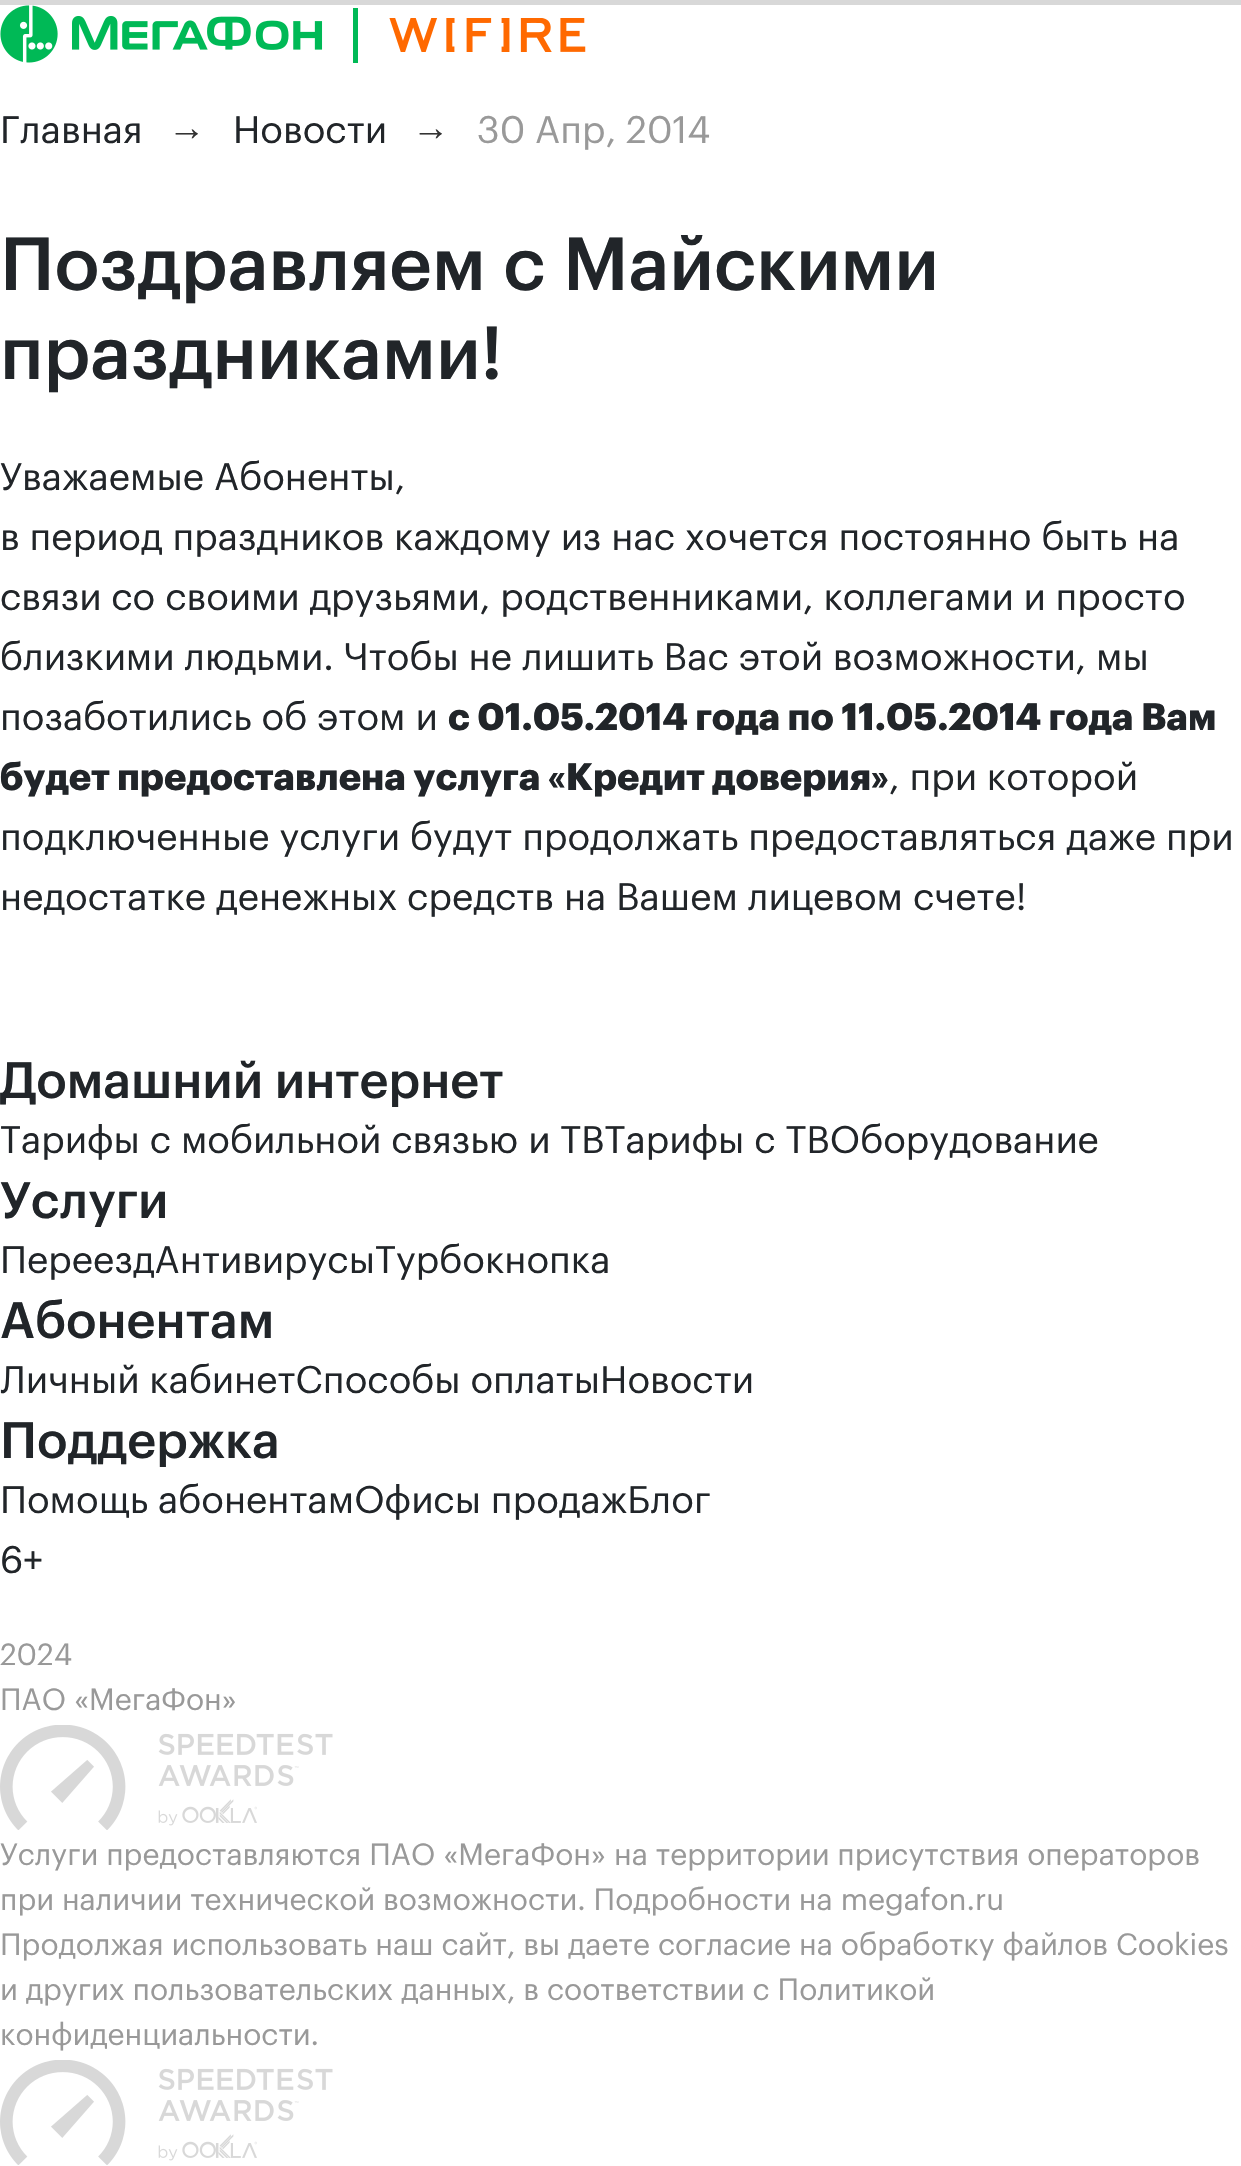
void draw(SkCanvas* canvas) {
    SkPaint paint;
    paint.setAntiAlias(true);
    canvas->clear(0xFFFFFFFF);
    paint.setColor(0xFFD8D8D8);
    canvas->drawRect(SkRect::MakeXYWH(0, 0, 1241, 5), paint);
    canvas->drawImageRect(SkImages::DeferredFromEncodedData(SkData::MakeFromFileName("img1.png")), SkRect::MakeXYWH(0, 5, 323, 58), SkSamplingOptions());
    paint.setColor(0xFF00B956);
    canvas->drawRect(SkRect::MakeXYWH(353, 8, 5, 55), paint);
    canvas->drawImageRect(SkImages::DeferredFromEncodedData(SkData::MakeFromFileName("img2.png")), SkRect::MakeXYWH(389, 18, 197, 34), SkSamplingOptions());
    SkFont font1(fontMgr->matchFamilyStyle("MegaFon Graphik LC", SkFontStyle::Normal()), 37.5f);
    font1.setSubpixel(true);
    paint.setColor(0xFF212529);
    canvas->drawString("Главная", 0, 143, font1, paint);
    SkFont font2(fontMgr->matchFamilyStyle("Liberation Sans", SkFontStyle::Normal()), 37.5f);
    font2.setSubpixel(true);
    paint.setColor(0xFF333333);
    canvas->drawString("→", 168, 140, font2, paint);
    paint.setColor(0xFF212529);
    canvas->drawString("Новости", 233, 143, font1, paint);
    paint.setColor(0xFF333333);
    canvas->drawString("→", 412, 140, font2, paint);
    paint.setColor(0xFF999999);
    canvas->drawString("30 Апр, 2014", 477, 143, font1, paint);
    SkFont font3(fontMgr->matchFamilyStyle("MegaFon Graphik LC", SkFontStyle(500, SkFontStyle::kNormal_Width, SkFontStyle::kUpright_Slant)), 73.6f);
    font3.setSubpixel(true);
    paint.setColor(0xFF212529);
    canvas->drawString("Поздравляем с Майскими", 0, 290, font3, paint);
    canvas->drawString("праздниками!", 0, 379, font3, paint);
    canvas->drawString("Уважаемые Абоненты,", 0, 490, font1, paint);
    canvas->drawString("в период праздников каждому из нас хочется постоянно быть на", 0, 550, font1, paint);
    canvas->drawString("связи со своими друзьями, родственниками, коллегами и просто", 0, 610, font1, paint);
    canvas->drawString("близкими людьми. Чтобы не лишить Вас этой возможности, мы", 0, 670, font1, paint);
    canvas->drawString("позаботились об этом и", 0, 730, font1, paint);
    SkFont font4(fontMgr->matchFamilyStyle("MegaFon Graphik LC", SkFontStyle::Bold()), 37.5f);
    font4.setSubpixel(true);
    canvas->drawString("с 01.05.2014 года по 11.05.2014 года Вам", 448, 730, font4, paint);
    canvas->drawString("будет предоставлена услуга «Кредит доверия»", 0, 790, font4, paint);
    canvas->drawString(", при которой", 889, 790, font1, paint);
    canvas->drawString("подключенные услуги будут продолжать предоставляться даже при", 0, 850, font1, paint);
    canvas->drawString("недостатке денежных средств на Вашем лицевом счете!", 0, 910, font1, paint);
    SkFont font5(fontMgr->matchFamilyStyle("MegaFon Graphik LC", SkFontStyle(500, SkFontStyle::kNormal_Width, SkFontStyle::kUpright_Slant)), 50);
    font5.setSubpixel(true);
    canvas->drawString("Домашний интернет", 0, 1098, font5, paint);
    canvas->drawString("Тарифы с мобильной связью и ТВТарифы с ТВОборудование", 0, 1153, font1, paint);
    canvas->drawString("Услуги", 0, 1218, font5, paint);
    canvas->drawString("ПереездАнтивирусыТурбокнопка", 0, 1273, font1, paint);
    canvas->drawString("Абонентам", 0, 1338, font5, paint);
    canvas->drawString("Личный кабинетСпособы оплатыНовости", 0, 1393, font1, paint);
    canvas->drawString("Поддержка", 0, 1458, font5, paint);
    canvas->drawString("Помощь абонентамОфисы продажБлог", 0, 1513, font1, paint);
    canvas->drawString("6+", 0, 1573, font1, paint);
    SkFont font6(fontMgr->matchFamilyStyle("MegaFon Graphik LC", SkFontStyle::Normal()), 30);
    font6.setSubpixel(true);
    paint.setColor(0xFF999999);
    canvas->drawString("2024", 0, 1665, font6, paint);
    canvas->drawString("ПАО «МегаФон»", 0, 1710, font6, paint);
    canvas->drawImageRect(SkImages::DeferredFromEncodedData(SkData::MakeFromFileName("img3.png")), SkRect::MakeXYWH(0, 1725, 333, 105), SkSamplingOptions());
    canvas->drawString("Услуги предоставляются ПАО «МегаФон» на территории присутствия операторов", 0, 1865, font6, paint);
    canvas->drawString("при наличии технической возможности. Подробности на megafon.ru", 0, 1910, font6, paint);
    canvas->drawString("Продолжая использовать наш сайт, вы даете согласие на обработку файлов Cookies", 0, 1955, font6, paint);
    canvas->drawString("и других пользовательских данных, в соответствии с Политикой", 0, 2000, font6, paint);
    canvas->drawString("конфиденциальности.", 0, 2045, font6, paint);
    canvas->drawImageRect(SkImages::DeferredFromEncodedData(SkData::MakeFromFileName("img3.png")), SkRect::MakeXYWH(0, 2060, 333, 105), SkSamplingOptions());
}
